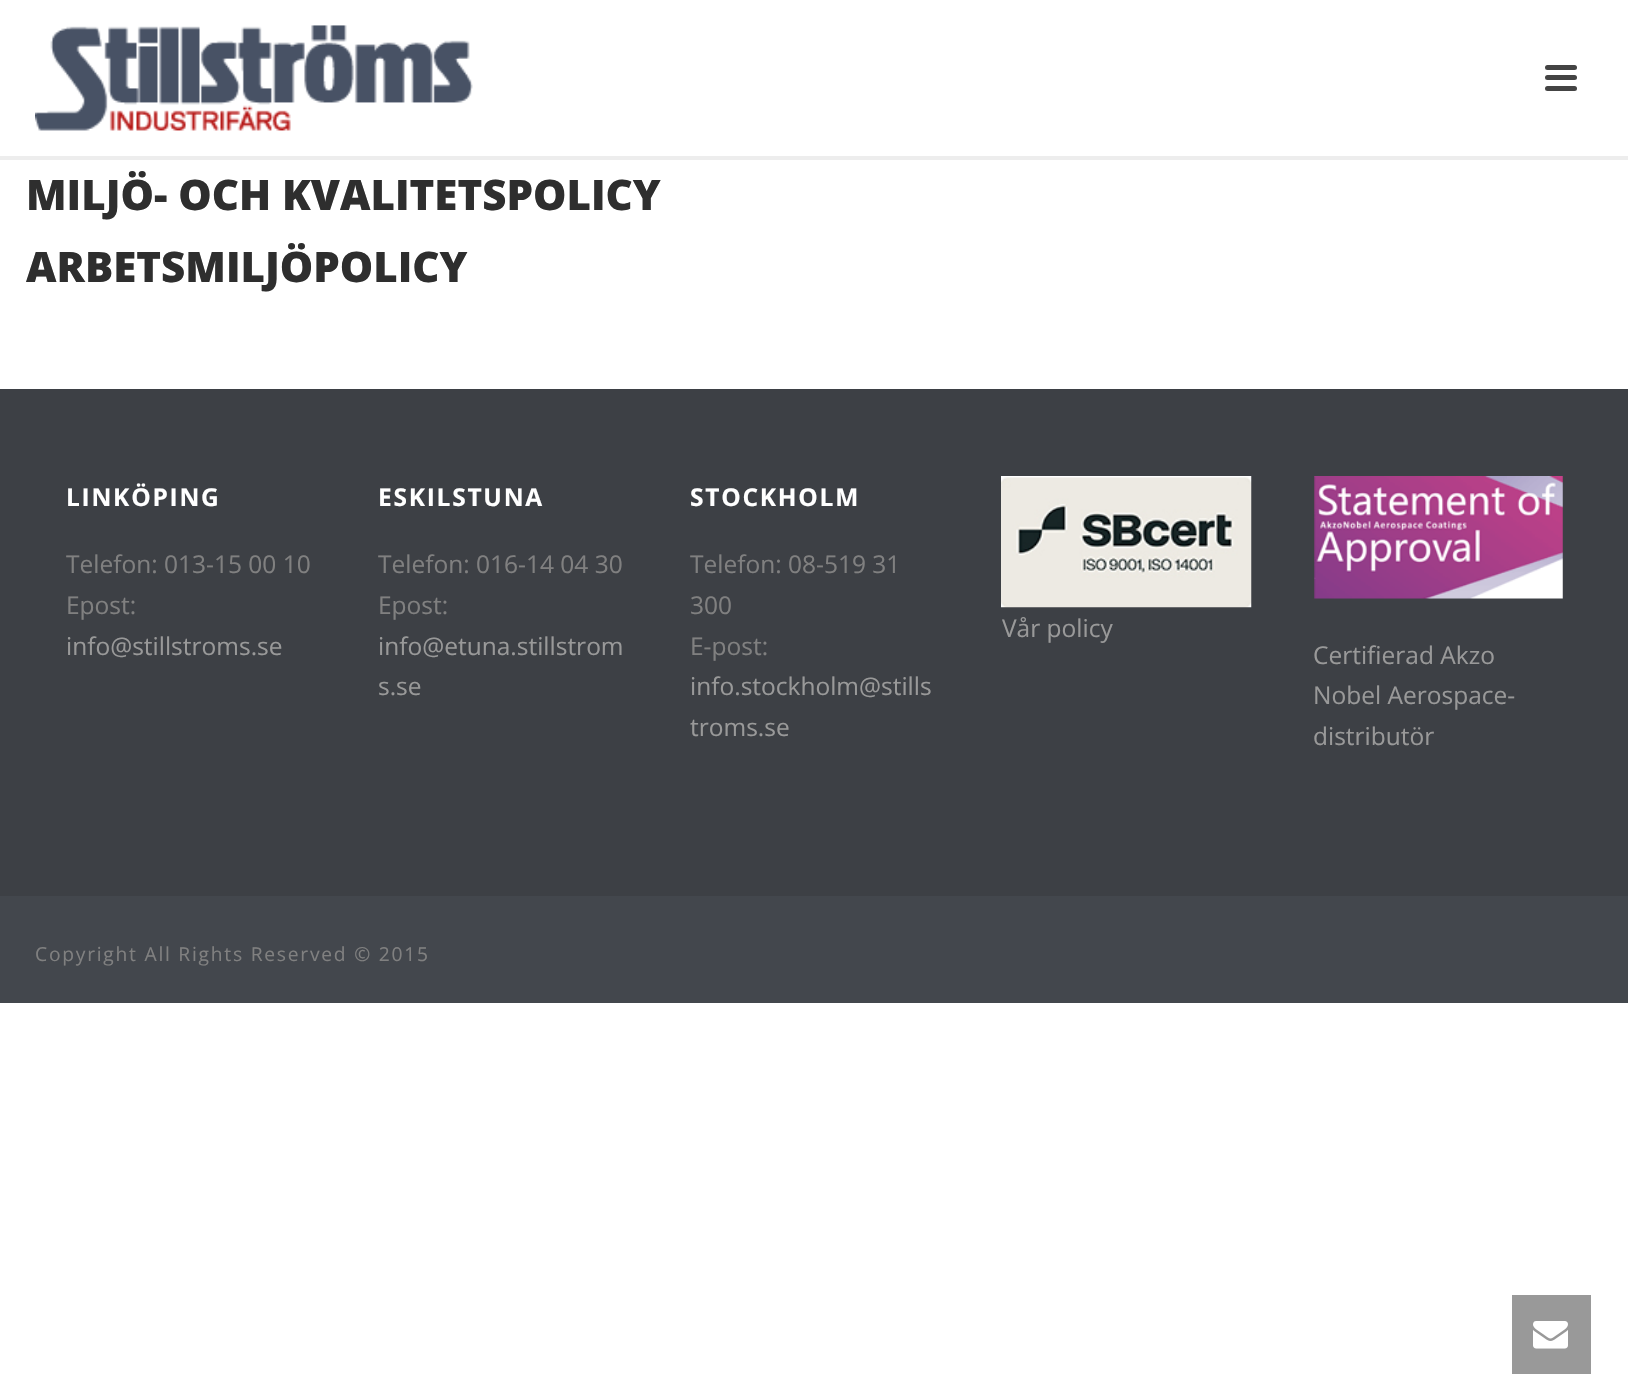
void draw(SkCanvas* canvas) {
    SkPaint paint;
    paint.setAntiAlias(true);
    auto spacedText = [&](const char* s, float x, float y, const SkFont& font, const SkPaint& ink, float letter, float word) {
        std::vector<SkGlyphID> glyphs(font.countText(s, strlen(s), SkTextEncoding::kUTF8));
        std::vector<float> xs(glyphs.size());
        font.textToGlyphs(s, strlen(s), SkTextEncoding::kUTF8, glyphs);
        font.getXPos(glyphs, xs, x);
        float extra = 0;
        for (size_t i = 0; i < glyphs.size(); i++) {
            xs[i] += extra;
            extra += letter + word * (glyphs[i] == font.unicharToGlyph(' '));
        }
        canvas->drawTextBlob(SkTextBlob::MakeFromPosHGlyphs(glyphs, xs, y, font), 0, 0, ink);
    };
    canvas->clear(0xFFFFFFFF);
    paint.setColor(0xFFEDEDED);
    canvas->drawRect(SkRect::MakeXYWH(0, 156, 1628, 4), paint);
    canvas->drawImageRect(SkImages::DeferredFromEncodedData(SkData::MakeFromFileName("img1.png")), SkRect::MakeXYWH(35, 25, 438, 106), SkSamplingOptions());
    paint.setColor(0xFF444444);
    canvas->drawRoundRect(SkRect::MakeXYWH(1545, 65, 32, 5), 2.5f, 2.5f, paint);
    canvas->drawRoundRect(SkRect::MakeXYWH(1545, 75, 32, 5), 2.5f, 2.5f, paint);
    canvas->drawRoundRect(SkRect::MakeXYWH(1545, 86, 32, 5), 2.5f, 2.5f, paint);
    SkFont font1(fontMgr->matchFamilyStyle("Open Sans", SkFontStyle(800, SkFontStyle::kNormal_Width, SkFontStyle::kUpright_Slant)), 42);
    font1.setSubpixel(true);
    paint.setColor(0xFF2E2E2E);
    canvas->drawString("MILJÖ- OCH KVALITETSPOLICY", 26, 210, font1, paint);
    canvas->drawString("ARBETSMILJÖPOLICY", 26, 282, font1, paint);
    paint.setColor(0xFF3D4045);
    canvas->drawRect(SkRect::MakeXYWH(0, 389, 1628, 507), paint);
    SkFont font2(fontMgr->matchFamilyStyle("Open Sans", SkFontStyle::Bold()), 24.5f);
    font2.setSubpixel(true);
    paint.setColor(0xFFFFFFFF);
    spacedText("LINKÖPING", 66, 506, font2, paint, 1.75f, 0);
    SkFont font3(fontMgr->matchFamilyStyle("Open Sans", SkFontStyle::Normal()), 24.5f);
    font3.setSubpixel(true);
    paint.setColor(0xFF808080);
    canvas->drawString("Telefon: 013-15 00 10", 66, 573, font3, paint);
    canvas->drawString("Epost:", 66, 614, font3, paint);
    paint.setColor(0xFF999999);
    canvas->drawString("info@stillstroms.se", 66, 655, font3, paint);
    paint.setColor(0xFFFFFFFF);
    spacedText("ESKILSTUNA", 378, 506, font2, paint, 1.75f, 0);
    paint.setColor(0xFF808080);
    canvas->drawString("Telefon: 016-14 04 30", 378, 573, font3, paint);
    canvas->drawString("Epost:", 378, 614, font3, paint);
    paint.setColor(0xFF999999);
    canvas->drawString("info@etuna.stillstrom", 378, 655, font3, paint);
    canvas->drawString("s.se", 378, 695, font3, paint);
    paint.setColor(0xFFFFFFFF);
    spacedText("STOCKHOLM", 690, 506, font2, paint, 1.75f, 0);
    paint.setColor(0xFF808080);
    canvas->drawString("Telefon: 08-519 31", 690, 573, font3, paint);
    canvas->drawString("300", 690, 614, font3, paint);
    canvas->drawString("E-post:", 690, 655, font3, paint);
    paint.setColor(0xFF999999);
    canvas->drawString("info.stockholm@stills", 690, 695, font3, paint);
    canvas->drawString("troms.se", 690, 736, font3, paint);
    canvas->drawImageRect(SkImages::DeferredFromEncodedData(SkData::MakeFromFileName("img2.png")), SkRect::MakeXYWH(1001, 476, 251, 132), SkSamplingOptions());
    canvas->drawString("Vår policy", 1002, 637, font3, paint);
    canvas->drawImageRect(SkImages::DeferredFromEncodedData(SkData::MakeFromFileName("img3.png")), SkRect::MakeXYWH(1314, 476, 249, 123), SkSamplingOptions());
    canvas->drawString("Certifierad Akzo", 1313, 664, font3, paint);
    canvas->drawString("Nobel Aerospace-", 1313, 704, font3, paint);
    canvas->drawString("distributör", 1313, 745, font3, paint);
    paint.setColor(0xFF43474D);
    canvas->drawRect(SkRect::MakeXYWH(0, 896, 1628, 107), paint);
    SkFont font4(fontMgr->matchFamilyStyle("Open Sans", SkFontStyle::Normal()), 19.25f);
    font4.setSubpixel(true);
    paint.setColor(0xFF808080);
    spacedText("Copyright All Rights Reserved © 2015", 35, 961, font4, paint, 1.75f, 0);
    paint.setColor(0xFF999999);
    canvas->drawRect(SkRect::MakeXYWH(1512, 1295, 79, 79), paint);
    canvas->drawImageRect(SkImages::DeferredFromEncodedData(SkData::MakeFromFileName("img4.png")), SkRect::MakeXYWH(1533, 1321, 35, 28), SkSamplingOptions());
}
